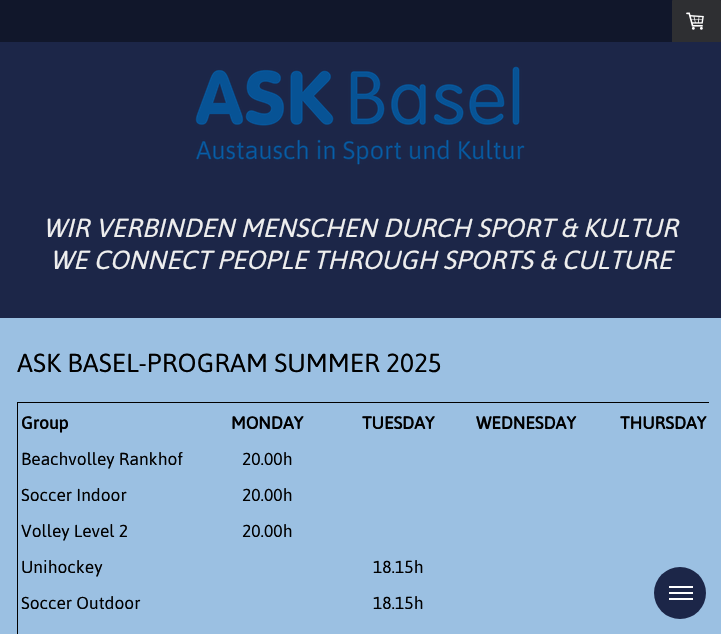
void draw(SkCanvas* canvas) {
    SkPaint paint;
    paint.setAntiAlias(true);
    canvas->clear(0xFF9BC0E2);
    paint.setColor(0xFF11172B);
    canvas->drawRect(SkRect::MakeXYWH(0, 0, 721, 42), paint);
    paint.setColor(0xFF2E2F32);
    canvas->drawPath(SkPathBuilder().moveTo(673, 0).lineTo(720, 0).cubicTo(720.5f, 0, 721, 0.5f, 721, 1).lineTo(721, 42).lineTo(672, 42).lineTo(672, 1).cubicTo(672, 0.5f, 672.5f, 0, 673, 0).close().detach(), paint);
    canvas->drawImageRect(SkImages::DeferredFromEncodedData(SkData::MakeFromFileName("img1.png")), SkRect::MakeXYWH(686, 12, 18, 18), SkSamplingOptions());
    paint.setColor(0xFF1C2648);
    canvas->drawRect(SkRect::MakeXYWH(0, 42, 721, 276), paint);
    canvas->drawImageRect(SkImages::DeferredFromEncodedData(SkData::MakeFromFileName("img2.png")), SkRect::MakeXYWH(195, 66, 330, 99), SkSamplingOptions());
    SkFont font1(fontMgr->matchFamilyStyle("Jaldi", SkFontStyle::Italic()), 30);
    font1.setSubpixel(true);
    paint.setColor(0xFFEEEEEE);
    canvas->drawString("WIR VERBINDEN MENSCHEN DURCH SPORT & KULTUR", 43, 237, font1, paint);
    canvas->drawString("WE CONNECT PEOPLE THROUGH SPORTS & CULTURE", 50, 269, font1, paint);
    SkFont font2(fontMgr->matchFamilyStyle("Jaldi", SkFontStyle::Normal()), 30);
    font2.setSubpixel(true);
    paint.setColor(0xFF000000);
    canvas->drawString("ASK BASEL-PROGRAM SUMMER 2025", 17, 372, font2, paint);
    canvas->save();
    canvas->clipRect(SkRect::MakeXYWH(12, 397, 697, 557));
    paint.setStyle(SkPaint::kStroke_Style);
    paint.setStrokeWidth(1);
    canvas->drawRect(SkRect::MakeXYWH(17.5f, 402.5f, 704, 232), paint);
    canvas->restore();
    SkFont font3(fontMgr->matchFamilyStyle("Jaldi", SkFontStyle::Bold()), 20);
    font3.setSubpixel(true);
    paint.setStyle(SkPaint::kFill_Style);
    canvas->drawString("Group", 21, 429, font3, paint);
    canvas->drawString("MONDAY", 231, 429, font3, paint);
    canvas->drawString("TUESDAY", 362, 429, font3, paint);
    canvas->drawString("WEDNESDAY", 476, 429, font3, paint);
    canvas->drawString("THURSDAY", 620, 429, font3, paint);
    SkFont font4(fontMgr->matchFamilyStyle("Jaldi", SkFontStyle::Normal()), 20);
    font4.setSubpixel(true);
    canvas->drawString("Beachvolley Rankhof", 21, 465, font4, paint);
    canvas->drawString("20.00h", 242, 465, font4, paint);
    canvas->drawString("Soccer Indoor", 21, 501, font4, paint);
    canvas->drawString("20.00h", 242, 501, font4, paint);
    canvas->drawString("Volley Level 2", 21, 537, font4, paint);
    canvas->drawString("20.00h", 242, 537, font4, paint);
    canvas->drawString("Unihockey", 21, 573, font4, paint);
    canvas->drawString("18.15h", 373, 573, font4, paint);
    canvas->drawString("Soccer Outdoor", 21, 609, font4, paint);
    canvas->drawString("18.15h", 373, 609, font4, paint);
    paint.setColor(0xFF1C2648);
    canvas->drawCircle(680, 593, 26, paint);
    paint.setColor(0xFFFFFFFF);
    canvas->drawRect(SkRect::MakeXYWH(669, 592, 24, 2), paint);
    canvas->drawRect(SkRect::MakeXYWH(669, 586, 24, 2), paint);
    canvas->drawRect(SkRect::MakeXYWH(669, 598, 24, 2), paint);
}
